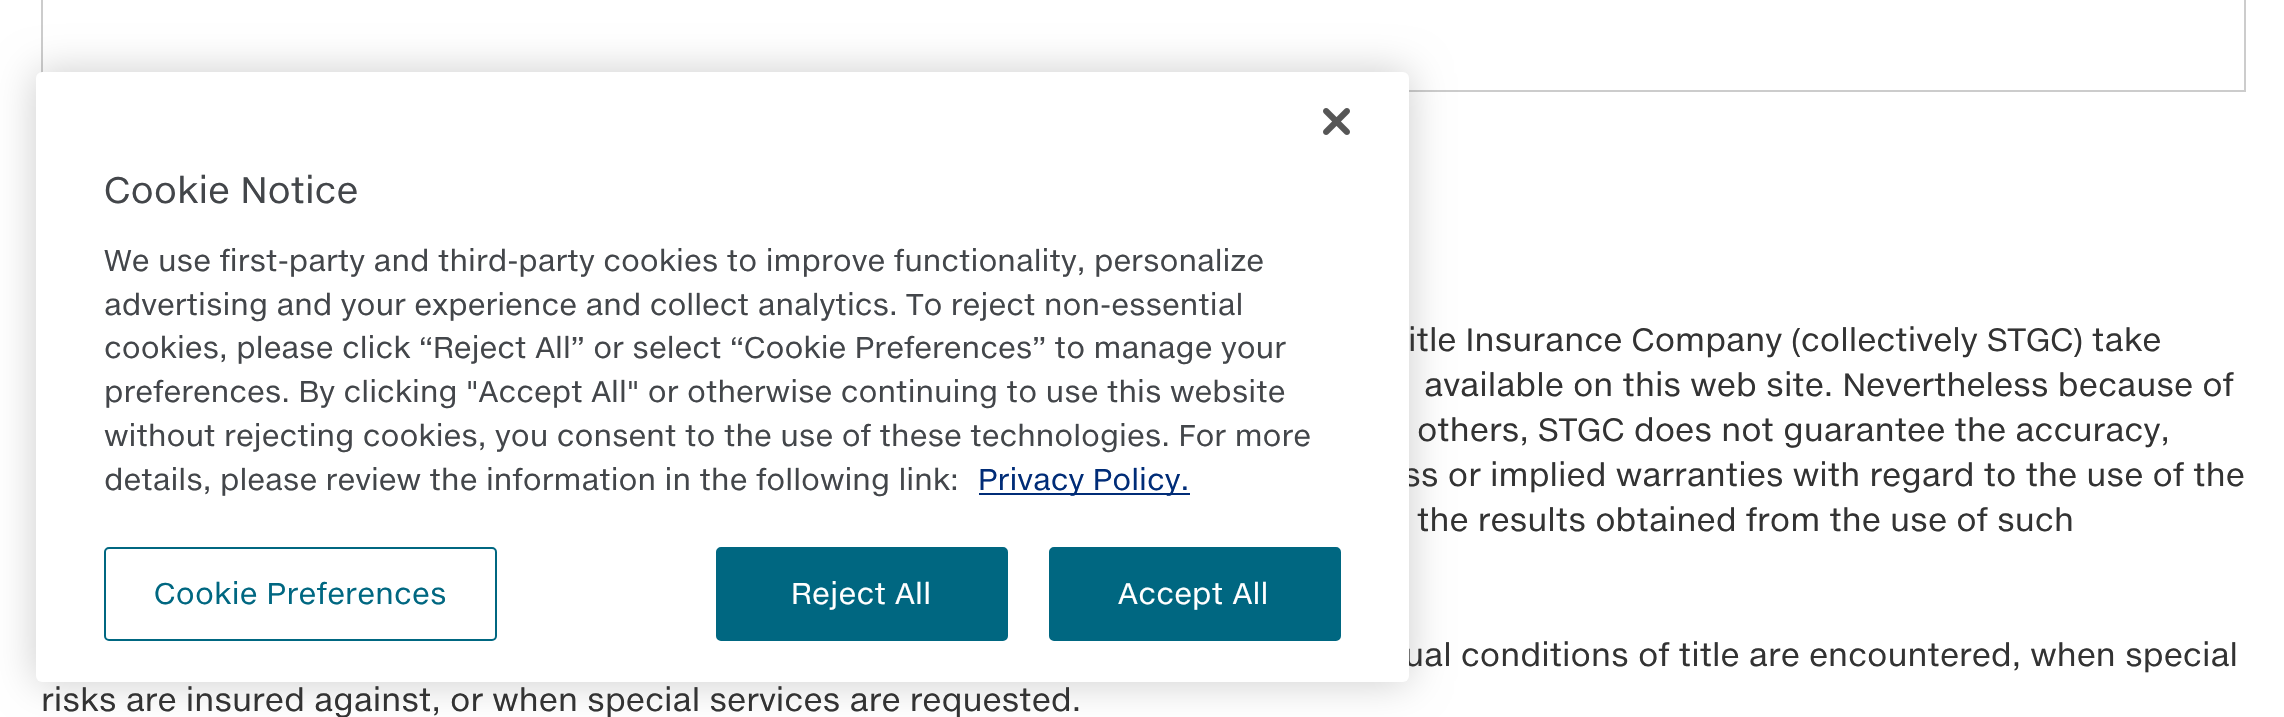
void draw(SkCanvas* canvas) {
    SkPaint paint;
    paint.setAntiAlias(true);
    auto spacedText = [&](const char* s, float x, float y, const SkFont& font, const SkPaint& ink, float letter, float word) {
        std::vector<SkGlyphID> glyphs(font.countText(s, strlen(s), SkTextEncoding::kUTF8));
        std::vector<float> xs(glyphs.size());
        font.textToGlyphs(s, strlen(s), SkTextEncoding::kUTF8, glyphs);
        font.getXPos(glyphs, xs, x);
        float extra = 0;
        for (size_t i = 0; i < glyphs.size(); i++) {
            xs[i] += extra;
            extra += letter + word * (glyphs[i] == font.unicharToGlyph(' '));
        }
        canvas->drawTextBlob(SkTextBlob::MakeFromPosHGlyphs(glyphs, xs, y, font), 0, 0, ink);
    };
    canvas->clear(0xFFFFFFFF);
    paint.setStyle(SkPaint::kStroke_Style);
    paint.setStrokeWidth(2);
    paint.setColor(0xFFCCCCCC);
    canvas->drawRect(SkRect::MakeXYWH(42, -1, 2203, 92), paint);
    paint.setStyle(SkPaint::kFill_Style);
    paint.setColor(0x33000000);
    paint.setMaskFilter(SkMaskFilter::MakeBlur(kNormal_SkBlurStyle, 20));
    canvas->drawRoundRect(SkRect::MakeXYWH(36, 72, 1373, 610), 6, 6, paint);
    paint.setMaskFilter(nullptr);
    SkFont font1(fontMgr->matchFamilyStyle("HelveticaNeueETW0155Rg", SkFontStyle::Normal()), 31.5f);
    font1.setSubpixel(true);
    paint.setColor(0xFF333333);
    canvas->drawString("ss or implied warranties with regard to the use of the", 1403, 486, font1, paint);
    canvas->drawString("ual conditions of title are encountered, when special", 1404, 666, font1, paint);
    paint.setColor(0xFFFFFFFF);
    canvas->drawRoundRect(SkRect::MakeXYWH(36, 72, 1373, 610), 6, 6, paint);
    canvas->drawImageRect(SkImages::DeferredFromEncodedData(SkData::MakeFromFileName("img1.png")), SkRect::MakeXYWH(1323, 108, 27, 27), SkSamplingOptions());
    SkFont font2(fontMgr->matchFamilyStyle("HelveticaNeueETW0155Rg", SkFontStyle::Normal()), 36);
    font2.setSubpixel(true);
    paint.setColor(0xFF43464A);
    canvas->drawString("Cookie Notice", 104, 203, font2, paint);
    SkFont font3(fontMgr->matchFamilyStyle("HelveticaNeueETW0155Rg", SkFontStyle::Normal()), 29.25f);
    font3.setSubpixel(true);
    canvas->drawString("We use first-party and third-party cookies to improve functionality, personalize", 104, 271, font3, paint);
    canvas->drawString("advertising and your experience and collect analytics. To reject non-essential", 104, 315, font3, paint);
    canvas->drawString("cookies, please click “Reject All” or select “Cookie Preferences” to manage your", 104, 358, font3, paint);
    canvas->drawString("preferences. By clicking \"Accept All\" or otherwise continuing to use this website", 104, 402, font3, paint);
    canvas->drawString("without rejecting cookies, you consent to the use of these technologies. For more", 104, 446, font3, paint);
    canvas->drawString("details, please review the information in the following link:", 104, 490, font3, paint);
    paint.setColor(0xFF002C77);
    canvas->drawRect(SkRect::MakeXYWH(979, 493, 211, 2), paint);
    canvas->drawString("Privacy Policy.", 978, 490, font3, paint);
    paint.setStyle(SkPaint::kStroke_Style);
    paint.setColor(0xFF006781);
    canvas->drawRoundRect(SkRect::MakeXYWH(105, 548, 391, 92), 4, 4, paint);
    paint.setStyle(SkPaint::kFill_Style);
    spacedText("Cookie Preferences", 154, 604, font3, paint, 0.25f, 0);
    canvas->drawRoundRect(SkRect::MakeXYWH(717, 548, 290, 92), 4, 4, paint);
    paint.setStyle(SkPaint::kStroke_Style);
    canvas->drawRoundRect(SkRect::MakeXYWH(717, 548, 290, 92), 4, 4, paint);
    paint.setStyle(SkPaint::kFill_Style);
    paint.setColor(0xFFFFFFFF);
    spacedText("Reject All", 791, 604, font3, paint, 0.25f, 0);
    paint.setColor(0xFF006781);
    canvas->drawRoundRect(SkRect::MakeXYWH(1050, 548, 290, 92), 4, 4, paint);
    paint.setStyle(SkPaint::kStroke_Style);
    canvas->drawRoundRect(SkRect::MakeXYWH(1050, 548, 290, 92), 4, 4, paint);
    paint.setStyle(SkPaint::kFill_Style);
    paint.setColor(0xFFFFFFFF);
    spacedText("Accept All", 1118, 604, font3, paint, 0.25f, 0);
    paint.setColor(0xFF333333);
    canvas->drawString("itle Insurance Company (collectively STGC) take", 1408, 351, font1, paint);
    canvas->drawString("available on this web site. Nevertheless because of", 1424, 396, font1, paint);
    canvas->drawString("others, STGC does not guarantee the accuracy,", 1417, 441, font1, paint);
    canvas->drawString("the results obtained from the use of such", 1417, 531, font1, paint);
    canvas->drawString("risks are insured against, or when special services are requested.", 41, 711, font1, paint);
}
